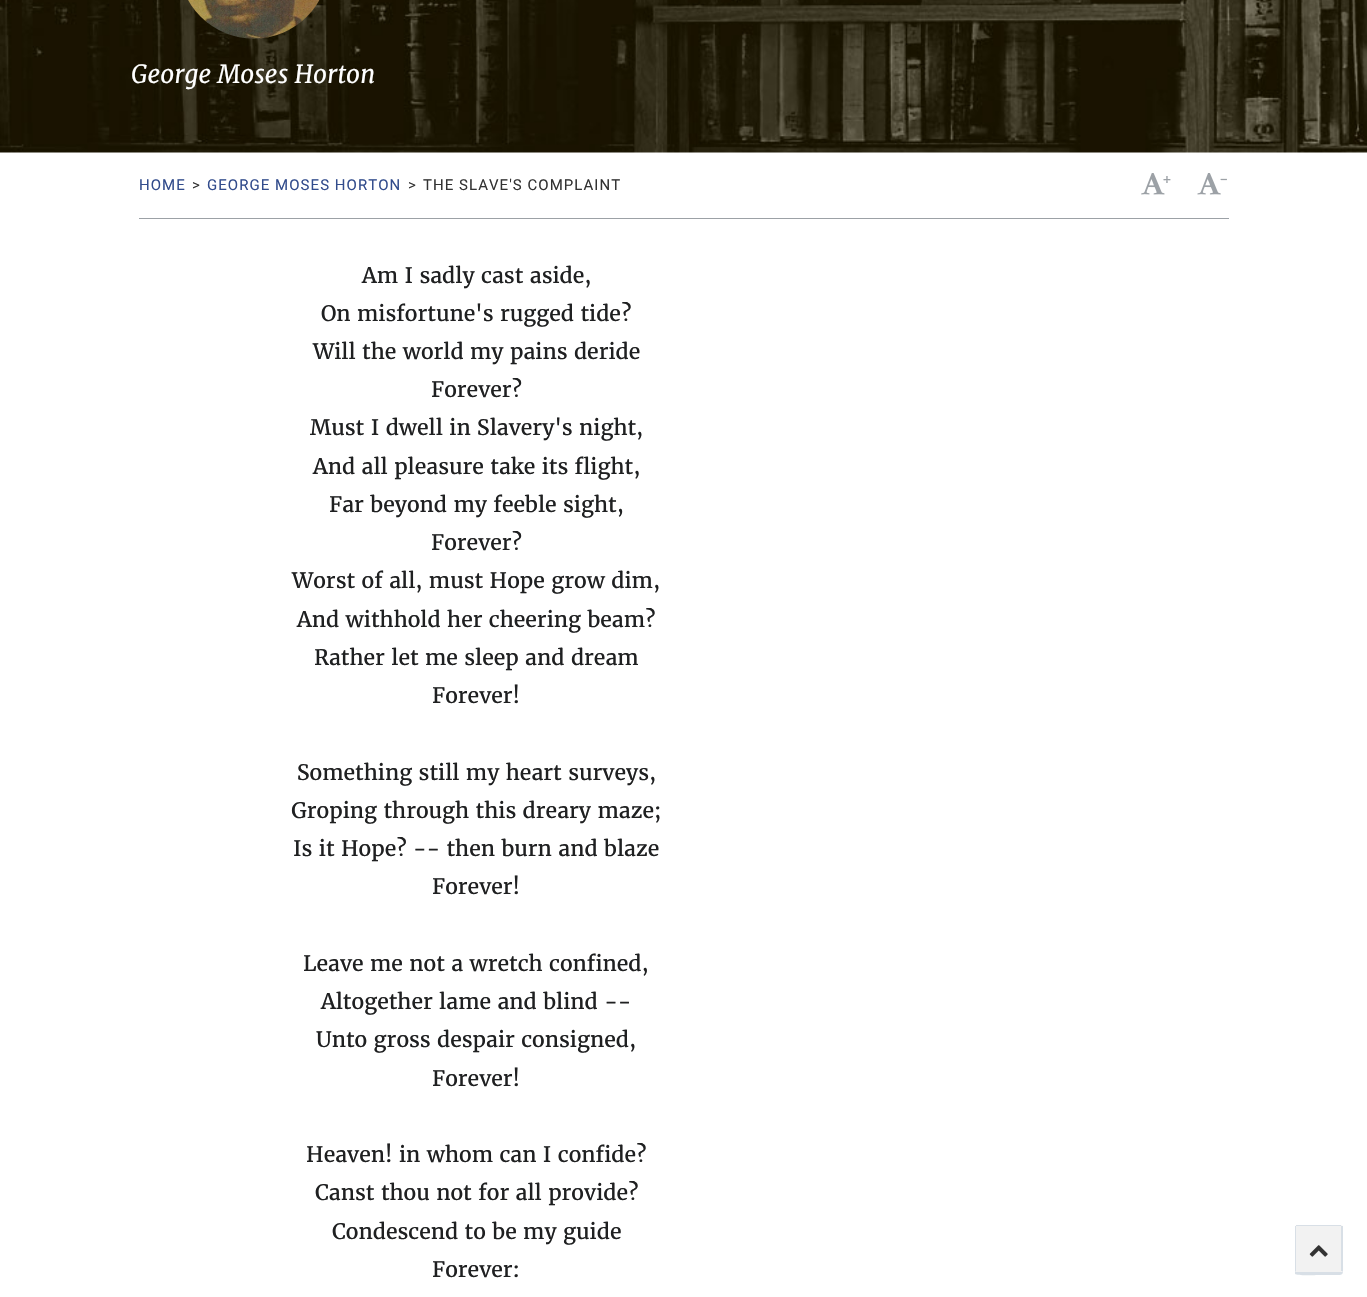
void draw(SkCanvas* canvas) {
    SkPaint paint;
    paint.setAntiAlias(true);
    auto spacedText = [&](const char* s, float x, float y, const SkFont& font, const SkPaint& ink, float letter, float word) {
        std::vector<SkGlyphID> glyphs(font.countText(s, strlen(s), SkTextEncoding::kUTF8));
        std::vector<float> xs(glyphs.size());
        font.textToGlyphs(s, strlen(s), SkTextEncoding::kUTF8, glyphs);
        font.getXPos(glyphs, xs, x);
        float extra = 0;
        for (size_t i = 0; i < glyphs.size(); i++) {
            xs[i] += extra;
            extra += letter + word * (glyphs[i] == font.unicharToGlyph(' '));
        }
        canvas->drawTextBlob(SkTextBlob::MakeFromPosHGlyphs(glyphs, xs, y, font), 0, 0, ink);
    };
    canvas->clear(0xFFFFFFFF);
    canvas->drawImageRect(SkImages::DeferredFromEncodedData(SkData::MakeFromFileName("img1.png")), SkRect::MakeXYWH(0, 0, 1367, 153), SkSamplingOptions());
    canvas->drawImageRect(SkImages::DeferredFromEncodedData(SkData::MakeFromFileName("img2.png")), SkRect::MakeXYWH(188, 0, 132, 39), SkSamplingOptions());
    SkFont font1(fontMgr->matchFamilyStyle("Merriweather", SkFontStyle::Italic()), 25);
    font1.setSubpixel(true);
    paint.setColor(0xFFFFFFFF);
    canvas->drawString("George Moses Horton", 131, 83, font1, paint);
    paint.setColor(0xFF9CA1A6);
    canvas->drawRect(SkRect::MakeXYWH(139, 218, 1090, 1), paint);
    SkFont font2(fontMgr->matchFamilyStyle("Roboto", SkFontStyle::Normal()), 15);
    font2.setSubpixel(true);
    paint.setColor(0xFF324C8C);
    spacedText("HOME", 139, 190, font2, paint, 1.05f, 0);
    paint.setColor(0xFF333333);
    spacedText(">", 192, 190, font2, paint, 1.05f, 0);
    paint.setColor(0xFF324C8C);
    spacedText("GEORGE MOSES HORTON", 207, 190, font2, paint, 1.05f, 0);
    paint.setColor(0xFF333333);
    spacedText(">", 408, 190, font2, paint, 1.05f, 0);
    spacedText("THE SLAVE'S COMPLAINT", 423, 190, font2, paint, 1.05f, 0);
    canvas->drawImageRect(SkImages::DeferredFromEncodedData(SkData::MakeFromFileName("img3.png")), SkRect::MakeXYWH(1141, 173, 24, 22), SkSamplingOptions());
    SkFont font3(fontMgr->matchFamilyStyle("Merriweather", SkFontStyle::Normal()), 15);
    font3.setSubpixel(true);
    paint.setColor(0xFF9CA1A6);
    canvas->drawString("+", 1162, 184, font3, paint);
    canvas->drawImageRect(SkImages::DeferredFromEncodedData(SkData::MakeFromFileName("img4.png")), SkRect::MakeXYWH(1197, 173, 24, 22), SkSamplingOptions());
    canvas->drawString("-", 1219, 184, font3, paint);
    SkFont font4(fontMgr->matchFamilyStyle("Merriweather", SkFontStyle::Normal()), 21.25f);
    font4.setSubpixel(true);
    paint.setColor(0xFF1F2021);
    canvas->drawString("Am I sadly cast aside,", 362, 283, font4, paint);
    canvas->drawString("On misfortune's rugged tide?", 321, 321, font4, paint);
    canvas->drawString("Will the world my pains deride", 313, 359, font4, paint);
    canvas->drawString("Forever?", 431, 397, font4, paint);
    canvas->drawString("Must I dwell in Slavery's night,", 310, 435, font4, paint);
    canvas->drawString("And all pleasure take its flight,", 313, 474, font4, paint);
    canvas->drawString("Far beyond my feeble sight,", 329, 512, font4, paint);
    canvas->drawString("Forever?", 431, 550, font4, paint);
    canvas->drawString("Worst of all, must Hope grow dim,", 292, 588, font4, paint);
    canvas->drawString("And withhold her cheering beam?", 297, 627, font4, paint);
    canvas->drawString("Rather let me sleep and dream", 314, 665, font4, paint);
    canvas->drawString("Forever!", 432, 703, font4, paint);
    canvas->drawString("Something still my heart surveys,", 297, 780, font4, paint);
    canvas->drawString("Groping through this dreary maze;", 291, 818, font4, paint);
    canvas->drawString("Is it Hope? -- then burn and blaze", 293, 856, font4, paint);
    canvas->drawString("Forever!", 432, 894, font4, paint);
    canvas->drawString("Leave me not a wretch confined,", 303, 971, font4, paint);
    canvas->drawString("Altogether lame and blind --", 321, 1009, font4, paint);
    canvas->drawString("Unto gross despair consigned,", 316, 1047, font4, paint);
    canvas->drawString("Forever!", 432, 1086, font4, paint);
    canvas->drawString("Heaven! in whom can I confide?", 306, 1162, font4, paint);
    canvas->drawString("Canst thou not for all provide?", 315, 1200, font4, paint);
    canvas->drawString("Condescend to be my guide", 332, 1239, font4, paint);
    canvas->drawString("Forever:", 432, 1277, font4, paint);
    paint.setColor(0xFFD8DFE6);
    canvas->drawPath(SkPathBuilder().moveTo(1295, 1272).lineTo(1295, 1229).lineTo(1295, 1270).cubicTo(1295, 1271, 1296, 1272, 1298, 1272).lineTo(1340, 1272).cubicTo(1342, 1272, 1343, 1271, 1343, 1270).lineTo(1343, 1229).lineTo(1343, 1265).cubicTo(1343, 1276, 1344, 1275, 1333, 1275).lineTo(1319, 1275).cubicTo(1316, 1275, 1297, 1276, 1295, 1274).close().detach(), paint);
    paint.setColor(0xFFF2F2F2);
    canvas->drawPath(SkPathBuilder().moveTo(1295, 1270).lineTo(1295, 1228).cubicTo(1295, 1226, 1296, 1225, 1298, 1225).lineTo(1340, 1225).cubicTo(1342, 1225, 1343, 1226, 1343, 1228).lineTo(1343, 1270).cubicTo(1343, 1271, 1342, 1272, 1340, 1272).lineTo(1298, 1272).cubicTo(1296, 1272, 1295, 1271, 1295, 1270).close().detach(), paint);
    paint.setColor(0xFFD8DFE6);
    canvas->drawRect(SkRect::MakeXYWH(1295, 1226, 1, 45), paint);
    canvas->drawRect(SkRect::MakeXYWH(1296, 1225, 45, 1), paint);
    canvas->drawRect(SkRect::MakeXYWH(1341, 1226, 2, 45), paint);
    canvas->drawImageRect(SkImages::DeferredFromEncodedData(SkData::MakeFromFileName("img5.png")), SkRect::MakeXYWH(1309, 1245, 19, 12), SkSamplingOptions());
}
